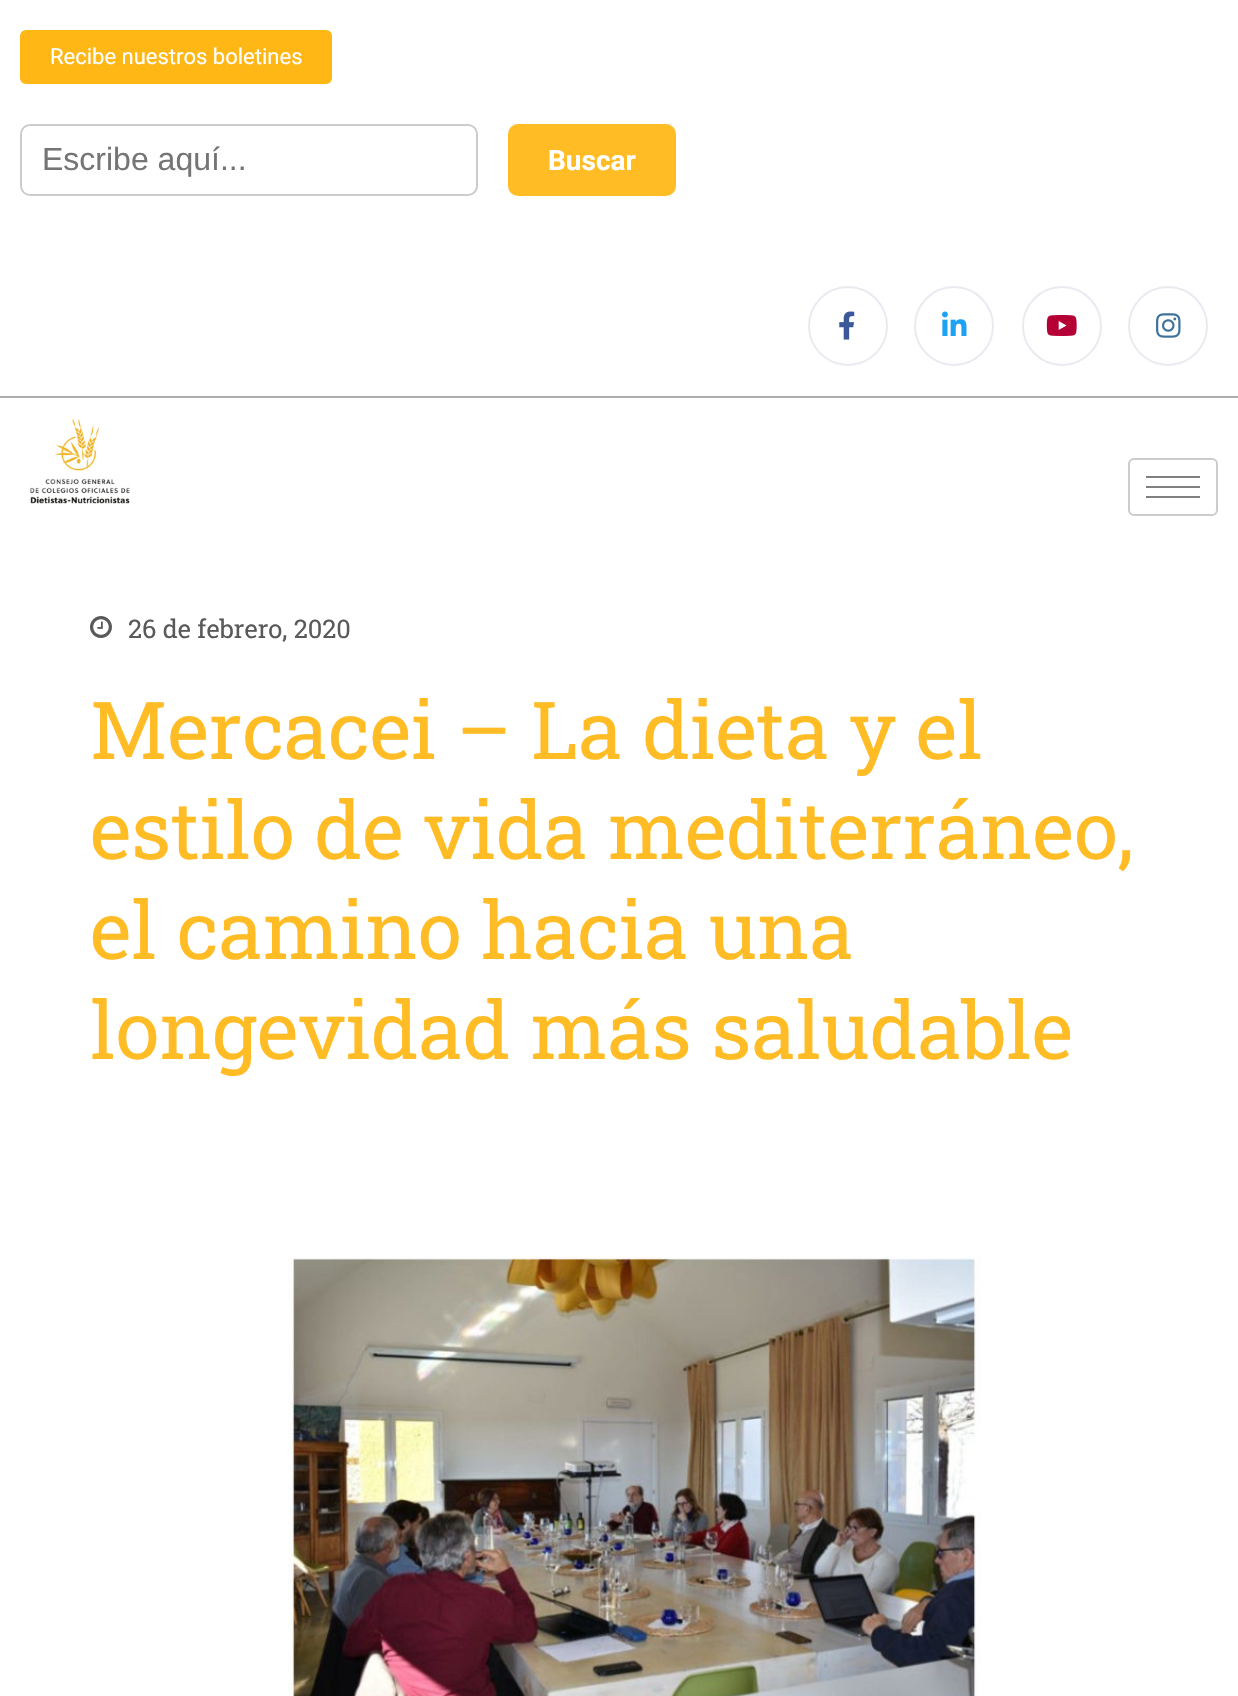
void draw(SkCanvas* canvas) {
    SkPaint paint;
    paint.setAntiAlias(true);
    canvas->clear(0xFFFFFFFF);
    paint.setColor(0xFFADADAD);
    canvas->drawRect(SkRect::MakeXYWH(0, 396, 1238, 2), paint);
    paint.setColor(0xFFFFB715);
    canvas->drawRoundRect(SkRect::MakeXYWH(20, 30, 312, 54), 6, 6, paint);
    SkFont font1(fontMgr->matchFamilyStyle("Roboto", SkFontStyle::Normal()), 22);
    font1.setSubpixel(true);
    paint.setColor(0xFFFFFFFF);
    canvas->drawString("Recibe nuestros boletines", 50, 64, font1, paint);
    paint.setStyle(SkPaint::kStroke_Style);
    paint.setStrokeWidth(2);
    paint.setColor(0xFFCCCCCC);
    canvas->drawRoundRect(SkRect::MakeXYWH(21, 125, 456, 70), 9, 9, paint);
    SkFont font2(fontMgr->matchFamilyStyle("Liberation Sans", SkFontStyle::Normal()), 32);
    font2.setSubpixel(true);
    paint.setStyle(SkPaint::kFill_Style);
    paint.setColor(0xFF757575);
    canvas->drawString("Escribe aquí...", 42, 170, font2, paint);
    paint.setColor(0xFFFFBC25);
    canvas->drawRoundRect(SkRect::MakeXYWH(508, 124, 168, 72), 10, 10, paint);
    SkFont font3(fontMgr->matchFamilyStyle("Roboto", SkFontStyle::Bold()), 28);
    font3.setSubpixel(true);
    paint.setColor(0xFFFFFFFF);
    canvas->drawString("Buscar", 548, 170, font3, paint);
    paint.setStyle(SkPaint::kStroke_Style);
    paint.setColor(0xFFEAEBF1);
    canvas->drawCircle(848, 326, 39, paint);
    canvas->drawImageRect(SkImages::DeferredFromEncodedData(SkData::MakeFromFileName("img1.png")), SkRect::MakeXYWH(839, 311, 16, 29), SkSamplingOptions());
    canvas->drawCircle(954, 326, 39, paint);
    canvas->drawImageRect(SkImages::DeferredFromEncodedData(SkData::MakeFromFileName("img2.png")), SkRect::MakeXYWH(942, 311, 25, 25), SkSamplingOptions());
    canvas->drawCircle(1062, 326, 39, paint);
    canvas->drawImageRect(SkImages::DeferredFromEncodedData(SkData::MakeFromFileName("img3.png")), SkRect::MakeXYWH(1046, 315, 31, 21), SkSamplingOptions());
    canvas->drawCircle(1168, 326, 39, paint);
    canvas->drawImageRect(SkImages::DeferredFromEncodedData(SkData::MakeFromFileName("img4.png")), SkRect::MakeXYWH(1156, 313, 25, 25), SkSamplingOptions());
    canvas->drawImageRect(SkImages::DeferredFromEncodedData(SkData::MakeFromFileName("img5.png")), SkRect::MakeXYWH(30, 418, 100, 86), SkSamplingOptions());
    paint.setColor(0xFFCCCCCC);
    canvas->drawRoundRect(SkRect::MakeXYWH(1129, 459, 88, 56), 5, 5, paint);
    paint.setStyle(SkPaint::kFill_Style);
    paint.setColor(0xFF808080);
    canvas->drawRect(SkRect::MakeXYWH(1146, 476, 54, 2), paint);
    canvas->drawRect(SkRect::MakeXYWH(1146, 486, 54, 2), paint);
    canvas->drawRect(SkRect::MakeXYWH(1146, 496, 54, 2), paint);
    canvas->drawImageRect(SkImages::DeferredFromEncodedData(SkData::MakeFromFileName("img6.png")), SkRect::MakeXYWH(90, 616, 22, 22), SkSamplingOptions());
    SkFont font4(fontMgr->matchFamilyStyle("Roboto Slab", SkFontStyle::Normal()), 25.5f);
    font4.setSubpixel(true);
    paint.setColor(0xFF595959);
    canvas->drawString("26 de febrero, 2020", 128, 638, font4, paint);
    SkFont font5(fontMgr->matchFamilyStyle("Roboto Slab", SkFontStyle::Normal()), 80);
    font5.setSubpixel(true);
    paint.setColor(0xFFFFBC25);
    canvas->drawString("Mercacei – La dieta y el", 90, 759, font5, paint);
    canvas->drawString("estilo de vida mediterráneo,", 90, 859, font5, paint);
    canvas->drawString("el camino hacia una", 90, 959, font5, paint);
    canvas->drawString("longevidad más saludable", 90, 1059, font5, paint);
    canvas->drawImageRect(SkImages::DeferredFromEncodedData(SkData::MakeFromFileName("img7.png")), SkRect::MakeXYWH(288, 1257, 693, 439), SkSamplingOptions());
}
